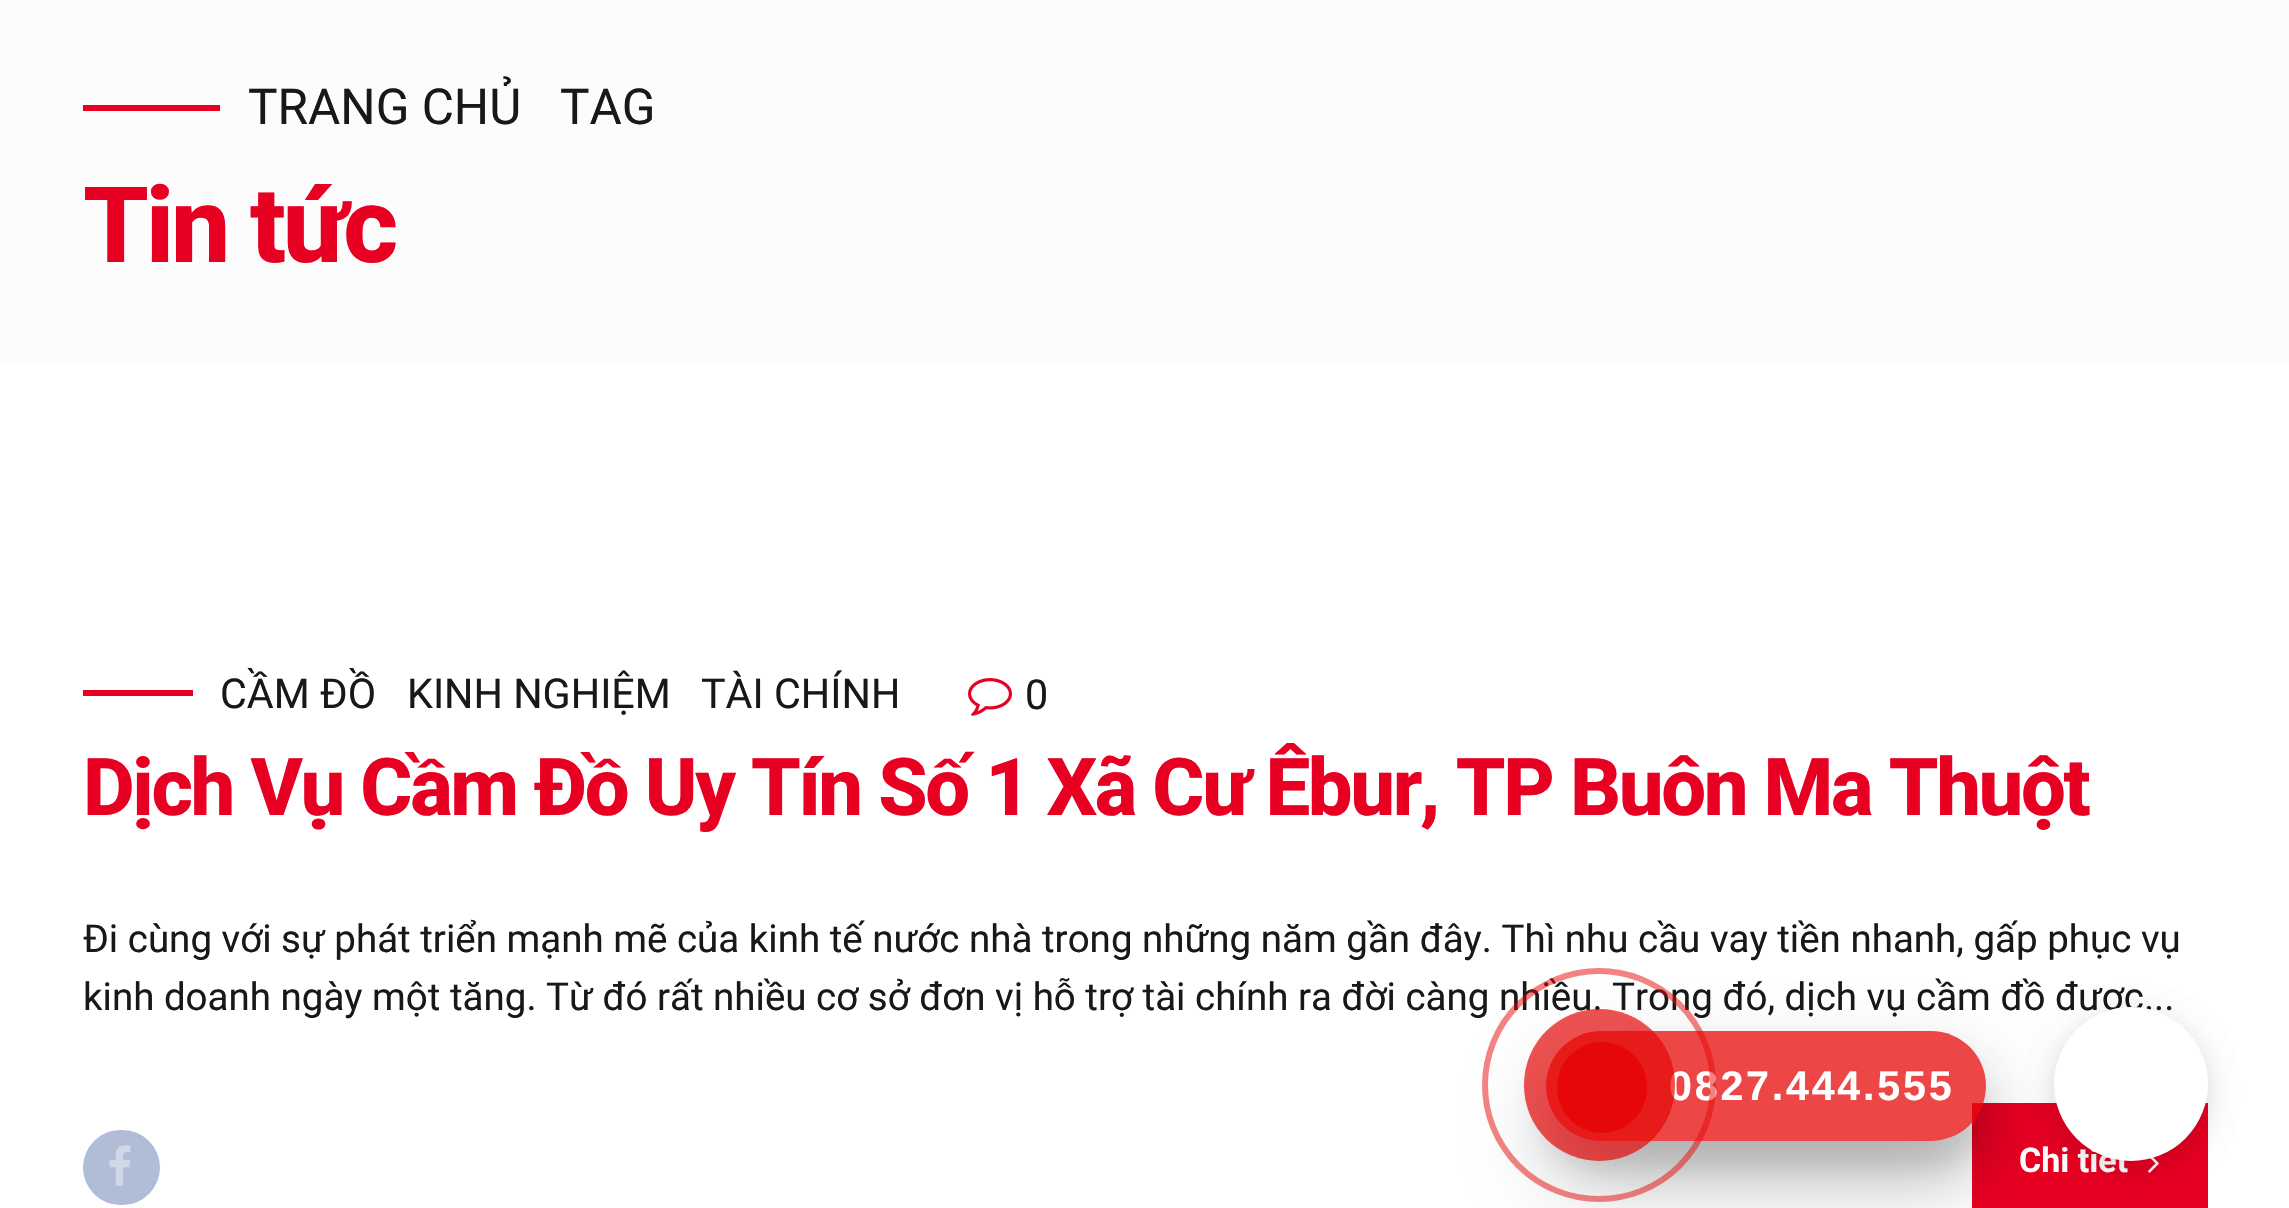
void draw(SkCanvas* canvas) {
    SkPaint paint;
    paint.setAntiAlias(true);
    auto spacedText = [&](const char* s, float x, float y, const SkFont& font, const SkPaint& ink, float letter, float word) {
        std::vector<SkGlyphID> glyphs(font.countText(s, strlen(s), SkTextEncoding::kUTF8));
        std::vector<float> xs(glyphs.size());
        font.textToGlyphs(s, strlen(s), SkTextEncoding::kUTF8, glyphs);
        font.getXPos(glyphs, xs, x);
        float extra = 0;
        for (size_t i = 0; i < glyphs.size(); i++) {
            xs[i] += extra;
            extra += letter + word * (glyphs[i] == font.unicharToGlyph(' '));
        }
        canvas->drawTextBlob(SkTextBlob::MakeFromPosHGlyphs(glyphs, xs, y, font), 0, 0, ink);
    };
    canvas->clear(0xFFFFFFFF);
    paint.setColor(0xFFFCFCFC);
    canvas->drawRect(SkRect::MakeXYWH(0, 0, 2289, 363), paint);
    paint.setColor(0xFFE80022);
    canvas->drawRect(SkRect::MakeXYWH(83, 105, 137, 6), paint);
    SkFont font1(fontMgr->matchFamilyStyle("Roboto", SkFontStyle::Normal()), 49.5f);
    font1.setSubpixel(true);
    paint.setColor(0xFF181818);
    canvas->drawString("TRANG CHỦ", 248, 124, font1, paint);
    canvas->drawString("TAG", 560, 124, font1, paint);
    SkFont font2(fontMgr->matchFamilyStyle("Roboto", SkFontStyle(800, SkFontStyle::kNormal_Width, SkFontStyle::kUpright_Slant)), 105.5f);
    font2.setSubpixel(true);
    paint.setColor(0xFFE80022);
    spacedText("Tin tức", 83, 262, font2, paint, -3.25f, 0);
    canvas->drawRect(SkRect::MakeXYWH(83, 690, 110, 6), paint);
    SkFont font3(fontMgr->matchFamilyStyle("Roboto", SkFontStyle::Normal()), 41.25f);
    font3.setSubpixel(true);
    paint.setColor(0xFF181818);
    canvas->drawString("CẦM ĐỒ", 220, 708, font3, paint);
    canvas->drawString("KINH NGHIỆM", 407, 708, font3, paint);
    canvas->drawString("TÀI CHÍNH", 701, 708, font3, paint);
    canvas->drawImageRect(SkImages::DeferredFromEncodedData(SkData::MakeFromFileName("img1.png")), SkRect::MakeXYWH(968, 678, 44, 38), SkSamplingOptions());
    canvas->drawString("0", 1025, 709, font3, paint);
    SkFont font4(fontMgr->matchFamilyStyle("Roboto", SkFontStyle(800, SkFontStyle::kNormal_Width, SkFontStyle::kUpright_Slant)), 79.75f);
    font4.setSubpixel(true);
    paint.setColor(0xFFE80022);
    spacedText("Dịch Vụ Cầm Đồ Uy Tín Số 1 Xã Cư Êbur, TP Buôn Ma Thuột", 83, 815, font4, paint, -2.4f, 0);
    SkFont font5(fontMgr->matchFamilyStyle("Roboto", SkFontStyle::Normal()), 38.5f);
    font5.setSubpixel(true);
    paint.setColor(0xFF181818);
    canvas->drawString("Đi cùng với sự phát triển mạnh mẽ của kinh tế nước nhà trong những năm gần đây. Thì nhu cầu vay tiền nhanh, gấp phục vụ", 83, 952, font5, paint);
    canvas->drawString("kinh doanh ngày một tăng. Từ đó rất nhiều cơ sở đơn vị hỗ trợ tài chính ra đời càng nhiều. Trong đó, dịch vụ cầm đồ được...", 83, 1010, font5, paint);
    paint.setColor(0xFFB1BDD6);
    canvas->drawRoundRect(SkRect::MakeXYWH(83, 1130, 77, 75), 37.5f, 37.5f, paint);
    canvas->drawImageRect(SkImages::DeferredFromEncodedData(SkData::MakeFromFileName("img2.png")), SkRect::MakeXYWH(109, 1145, 22, 41), SkSamplingOptions());
    paint.setColor(0xFFE80022);
    canvas->drawRect(SkRect::MakeXYWH(1972, 1103, 236, 105), paint);
    SkFont font6(fontMgr->matchFamilyStyle("Roboto", SkFontStyle::Bold()), 34);
    font6.setSubpixel(true);
    paint.setColor(0xFFFFFFFF);
    canvas->drawString("Chi tiết", 2019, 1172, font6, paint);
    canvas->drawImageRect(SkImages::DeferredFromEncodedData(SkData::MakeFromFileName("img3.png")), SkRect::MakeXYWH(2148, 1157, 11, 16), SkSamplingOptions());
    canvas->save();
    canvas->clipPath(SkPathBuilder(SkPathFillType::kEvenOdd).moveTo(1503, 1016).lineTo(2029, 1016).lineTo(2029, 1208).lineTo(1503, 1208).close().moveTo(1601, 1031).lineTo(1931, 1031).cubicTo(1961.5f, 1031, 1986, 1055.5f, 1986, 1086).cubicTo(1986, 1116.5f, 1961.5f, 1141, 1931, 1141).lineTo(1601, 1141).cubicTo(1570.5f, 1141, 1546, 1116.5f, 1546, 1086).cubicTo(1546, 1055.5f, 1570.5f, 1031, 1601, 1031).close().detach(), true);
    paint.setColor(0x1A000000);
    paint.setMaskFilter(SkMaskFilter::MakeBlur(kNormal_SkBlurStyle, 14));
    canvas->drawRoundRect(SkRect::MakeXYWH(1546, 1059, 440, 110), 55, 55, paint);
    paint.setMaskFilter(nullptr);
    canvas->restore();
    canvas->save();
    canvas->clipPath(SkPathBuilder(SkPathFillType::kEvenOdd).moveTo(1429, 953).lineTo(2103, 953).lineTo(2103, 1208).lineTo(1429, 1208).close().moveTo(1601, 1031).lineTo(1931, 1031).cubicTo(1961.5f, 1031, 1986, 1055.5f, 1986, 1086).cubicTo(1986, 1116.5f, 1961.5f, 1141, 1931, 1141).lineTo(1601, 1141).cubicTo(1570.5f, 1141, 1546, 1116.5f, 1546, 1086).cubicTo(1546, 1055.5f, 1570.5f, 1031, 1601, 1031).close().detach(), true);
    paint.setColor(0x40000000);
    paint.setMaskFilter(SkMaskFilter::MakeBlur(kNormal_SkBlurStyle, 38.5f));
    canvas->drawRoundRect(SkRect::MakeXYWH(1546, 1070, 440, 110), 55, 55, paint);
    paint.setMaskFilter(nullptr);
    canvas->restore();
    paint.setColor(0xBFE60808);
    canvas->drawRoundRect(SkRect::MakeXYWH(1546, 1031, 440, 110), 55, 55, paint);
    SkFont font7(fontMgr->matchFamilyStyle("Liberation Sans", SkFontStyle::Bold()), 41.25f);
    font7.setSubpixel(true);
    paint.setColor(0xFFFFFFFF);
    spacedText("0827.444.555", 1669, 1100, font7, paint, 2.75f, 0);
    paint.setStyle(SkPaint::kStroke_Style);
    paint.setStrokeWidth(6);
    paint.setColor(0x80E60808);
    canvas->drawCircle(1599, 1085, 114, paint);
    paint.setStyle(SkPaint::kFill_Style);
    paint.setColor(0xB3E60808);
    canvas->drawRoundRect(SkRect::MakeXYWH(1524, 1009, 151, 152), 75.5f, 75.5f, paint);
    paint.setColor(0xFFE60808);
    canvas->drawRoundRect(SkRect::MakeXYWH(1557, 1042, 90, 91), 45, 45, paint);
    paint.setColor(0x14000000);
    paint.setMaskFilter(SkMaskFilter::MakeBlur(kNormal_SkBlurStyle, 14));
    canvas->drawRoundRect(SkRect::MakeXYWH(2054, 1015, 154, 154), 77, 77, paint);
    paint.setMaskFilter(nullptr);
    paint.setMaskFilter(SkMaskFilter::MakeBlur(kNormal_SkBlurStyle, 14));
    canvas->drawRoundRect(SkRect::MakeXYWH(2054, 1015, 154, 154), 77, 77, paint);
    paint.setMaskFilter(nullptr);
    paint.setColor(0xFFFFFFFF);
    canvas->drawCircle(2131, 1084, 70, paint);
    paint.setStyle(SkPaint::kStroke_Style);
    paint.setStrokeWidth(14);
    canvas->drawCircle(2131, 1084, 70, paint);
}
